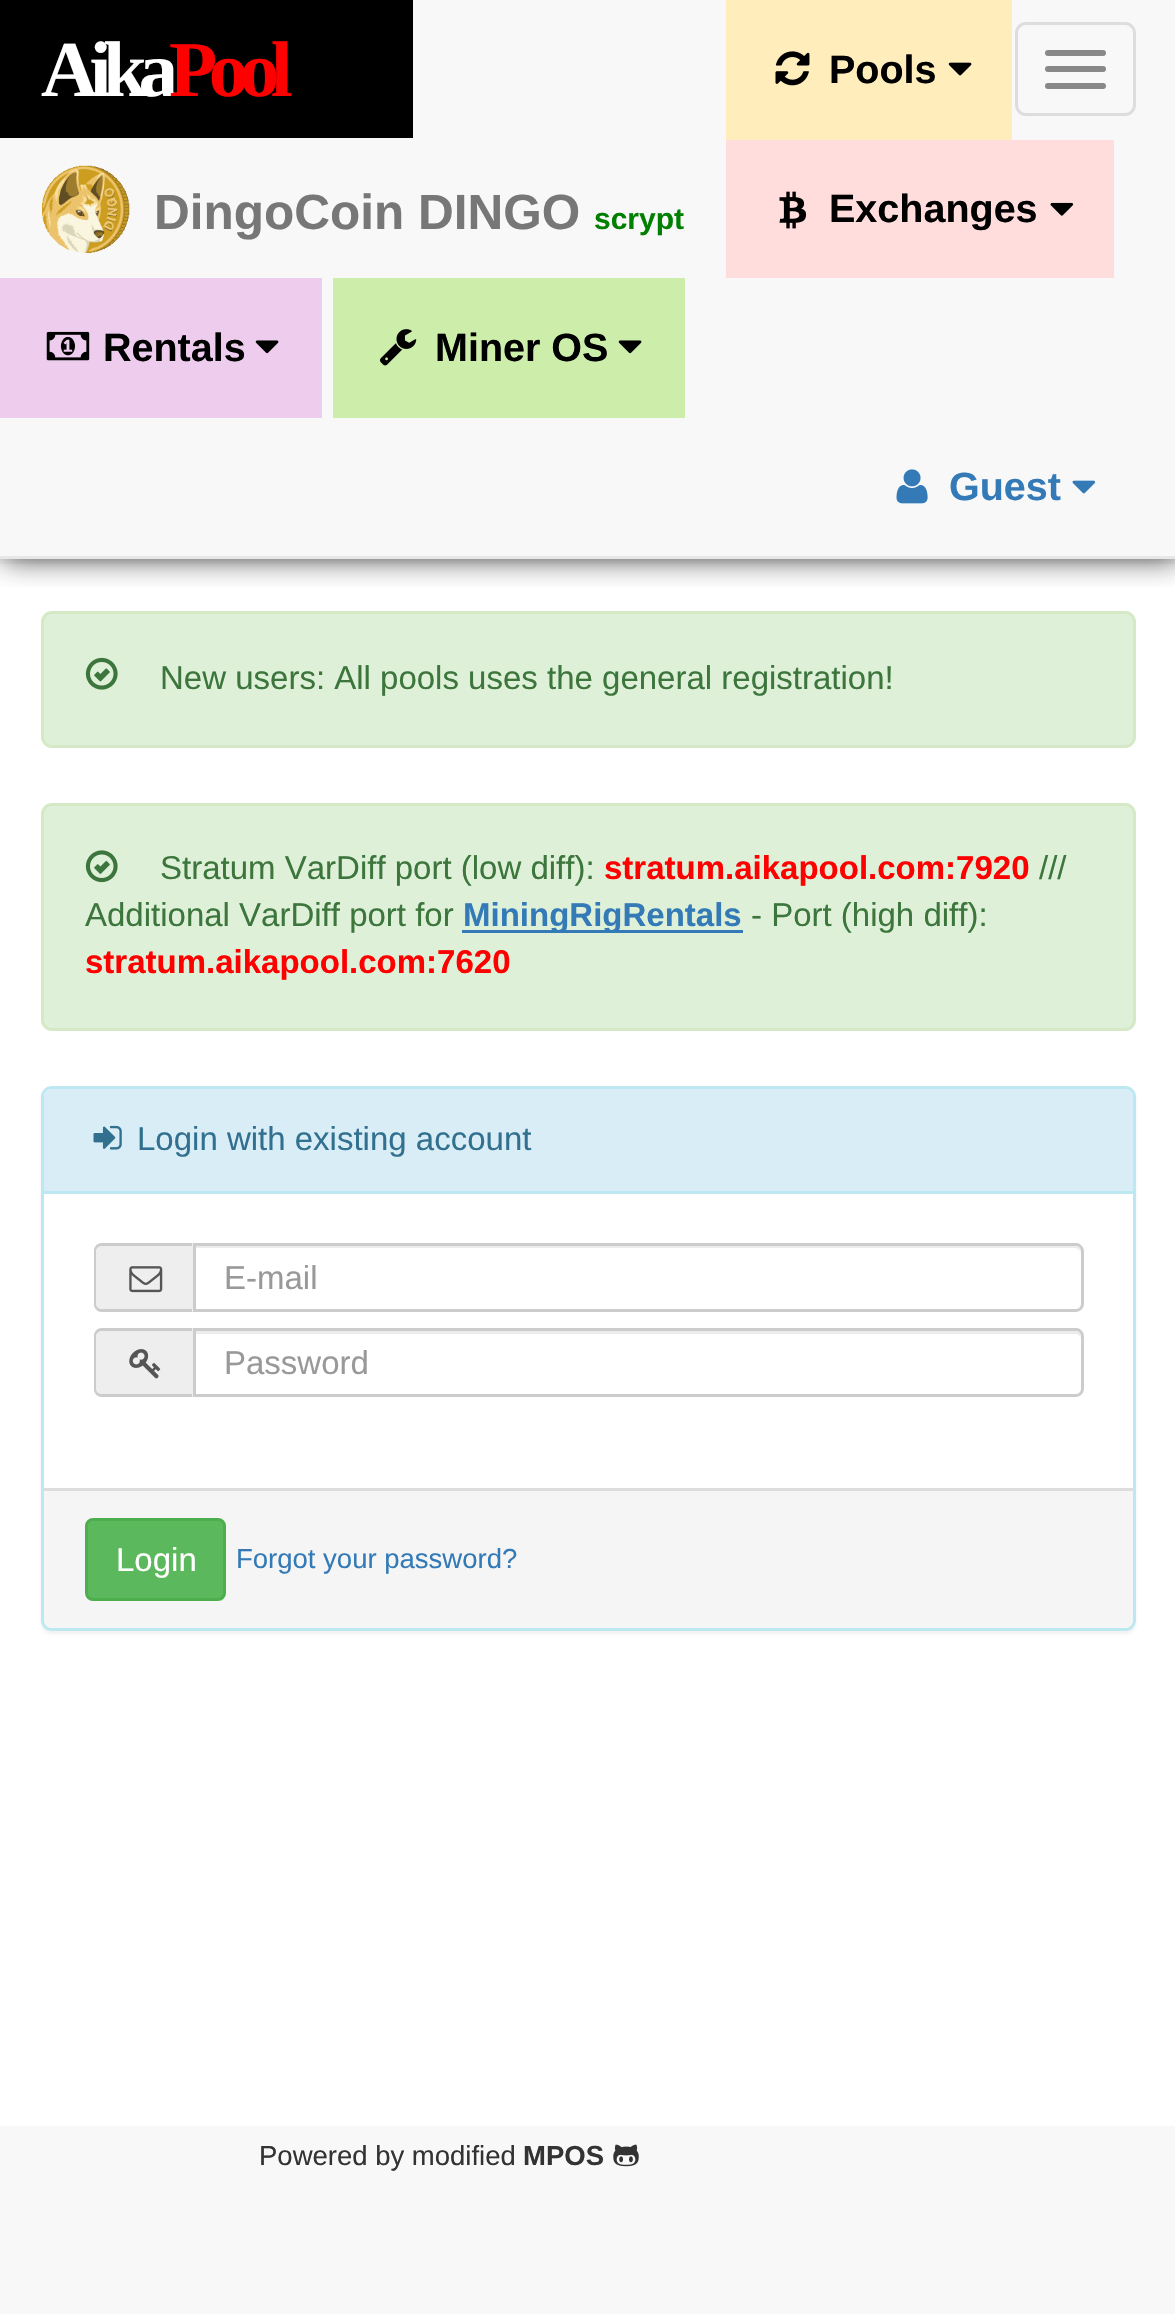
void draw(SkCanvas* canvas) {
    SkPaint paint;
    paint.setAntiAlias(true);
    auto spacedText = [&](const char* s, float x, float y, const SkFont& font, const SkPaint& ink, float letter, float word) {
        std::vector<SkGlyphID> glyphs(font.countText(s, strlen(s), SkTextEncoding::kUTF8));
        std::vector<float> xs(glyphs.size());
        font.textToGlyphs(s, strlen(s), SkTextEncoding::kUTF8, glyphs);
        font.getXPos(glyphs, xs, x);
        float extra = 0;
        for (size_t i = 0; i < glyphs.size(); i++) {
            xs[i] += extra;
            extra += letter + word * (glyphs[i] == font.unicharToGlyph(' '));
        }
        canvas->drawTextBlob(SkTextBlob::MakeFromPosHGlyphs(glyphs, xs, y, font), 0, 0, ink);
    };
    canvas->clear(0xFFF8F8F8);
    paint.setColor(0xFFFFFFFF);
    canvas->drawRect(SkRect::MakeXYWH(0, 564, 1175, 1562), paint);
    canvas->save();
    canvas->clipRect(SkRect::MakeXYWH(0, 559, 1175, 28));
    paint.setColor(0xFF333333);
    paint.setMaskFilter(SkMaskFilter::MakeBlur(kNormal_SkBlurStyle, 14));
    canvas->drawRect(SkRect::MakeXYWH(3, 0, 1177, 558), paint);
    paint.setMaskFilter(nullptr);
    canvas->restore();
    paint.setColor(0xFFE7E7E7);
    canvas->drawRect(SkRect::MakeXYWH(0, 556, 1175, 3), paint);
    paint.setColor(0xFF000000);
    canvas->drawRect(SkRect::MakeXYWH(0, 0, 413, 138), paint);
    SkFont font1(fontMgr->matchFamilyStyle("Liberation Serif", SkFontStyle::Bold()), 79);
    font1.setSubpixel(true);
    paint.setColor(0xFFFFFFFF);
    spacedText("Aika", 41, 96, font1, paint, -8.5f, 0);
    paint.setColor(0xFFFF0000);
    spacedText("Pool", 169, 96, font1, paint, -8.5f, 0);
    paint.setStyle(SkPaint::kStroke_Style);
    paint.setStrokeWidth(3);
    paint.setColor(0xFFDDDDDD);
    canvas->drawRoundRect(SkRect::MakeXYWH(1016.5f, 23.5f, 118, 91), 9.5f, 9.5f, paint);
    paint.setStyle(SkPaint::kFill_Style);
    paint.setColor(0xFF888888);
    canvas->drawRoundRect(SkRect::MakeXYWH(1045, 50, 61, 6), 3, 3, paint);
    canvas->drawRoundRect(SkRect::MakeXYWH(1045, 66, 61, 6), 3, 3, paint);
    canvas->drawRoundRect(SkRect::MakeXYWH(1045, 83, 61, 6), 3, 3, paint);
    paint.setColor(0xFFFFEEBB);
    canvas->drawRect(SkRect::MakeXYWH(726, 0, 286, 140), paint);
    canvas->drawImageRect(SkImages::DeferredFromEncodedData(SkData::MakeFromFileName("img1.png")), SkRect::MakeXYWH(775, 51, 35, 35), SkSamplingOptions());
    SkFont font2(fontMgr->matchFamilyStyle("Liberation Sans", SkFontStyle::Bold()), 39.5f);
    font2.setSubpixel(true);
    paint.setColor(0xFF000000);
    canvas->drawString("Pools", 829, 83, font2, paint);
    canvas->drawImageRect(SkImages::DeferredFromEncodedData(SkData::MakeFromFileName("img2.png")), SkRect::MakeXYWH(948, 62, 24, 14), SkSamplingOptions());
    paint.setColor(0xFFFFDDDD);
    canvas->drawRect(SkRect::MakeXYWH(726, 140, 388, 138), paint);
    canvas->drawImageRect(SkImages::DeferredFromEncodedData(SkData::MakeFromFileName("img3.png")), SkRect::MakeXYWH(779, 191, 28, 38), SkSamplingOptions());
    paint.setColor(0xFF000000);
    canvas->drawString("Exchanges", 829, 222, font2, paint);
    canvas->drawImageRect(SkImages::DeferredFromEncodedData(SkData::MakeFromFileName("img4.png")), SkRect::MakeXYWH(1050, 202, 24, 14), SkSamplingOptions());
    paint.setColor(0xFFEECCEE);
    canvas->drawRect(SkRect::MakeXYWH(0, 278, 322, 140), paint);
    canvas->drawImageRect(SkImages::DeferredFromEncodedData(SkData::MakeFromFileName("img5.png")), SkRect::MakeXYWH(46, 331, 44, 30), SkSamplingOptions());
    paint.setColor(0xFF000000);
    canvas->drawString("Rentals", 103, 361, font2, paint);
    canvas->drawImageRect(SkImages::DeferredFromEncodedData(SkData::MakeFromFileName("img6.png")), SkRect::MakeXYWH(255, 340, 24, 14), SkSamplingOptions());
    paint.setColor(0xFFCCEEAA);
    canvas->drawRect(SkRect::MakeXYWH(333, 278, 352, 140), paint);
    canvas->drawImageRect(SkImages::DeferredFromEncodedData(SkData::MakeFromFileName("img7.png")), SkRect::MakeXYWH(380, 329, 37, 37), SkSamplingOptions());
    paint.setColor(0xFF000000);
    canvas->drawString("Miner OS", 435, 361, font2, paint);
    canvas->drawImageRect(SkImages::DeferredFromEncodedData(SkData::MakeFromFileName("img8.png")), SkRect::MakeXYWH(618, 340, 24, 14), SkSamplingOptions());
    canvas->drawImageRect(SkImages::DeferredFromEncodedData(SkData::MakeFromFileName("img9.png")), SkRect::MakeXYWH(42, 165, 88, 88), SkSamplingOptions());
    SkFont font3(fontMgr->matchFamilyStyle("Liberation Sans", SkFontStyle::Bold()), 49.5f);
    font3.setSubpixel(true);
    paint.setColor(0xFF777777);
    canvas->drawString("DingoCoin DINGO", 154, 229, font3, paint);
    SkFont font4(fontMgr->matchFamilyStyle("Liberation Sans", SkFontStyle::Bold()), 30);
    font4.setSubpixel(true);
    paint.setColor(0xFF008000);
    canvas->drawString("scrypt", 594, 229, font4, paint);
    canvas->drawImageRect(SkImages::DeferredFromEncodedData(SkData::MakeFromFileName("img10.png")), SkRect::MakeXYWH(896, 469, 32, 35), SkSamplingOptions());
    paint.setColor(0xFF337AB7);
    canvas->drawString("Guest", 949, 500, font2, paint);
    canvas->drawImageRect(SkImages::DeferredFromEncodedData(SkData::MakeFromFileName("img11.png")), SkRect::MakeXYWH(1072, 480, 24, 14), SkSamplingOptions());
    paint.setColor(0xFFDFF0D8);
    canvas->drawRoundRect(SkRect::MakeXYWH(42.5f, 612.5f, 1092, 134), 9.5f, 9.5f, paint);
    paint.setStyle(SkPaint::kStroke_Style);
    paint.setColor(0xFFD6E9C6);
    canvas->drawRoundRect(SkRect::MakeXYWH(42.5f, 612.5f, 1092, 134), 9.5f, 9.5f, paint);
    canvas->drawImageRect(SkImages::DeferredFromEncodedData(SkData::MakeFromFileName("img12.png")), SkRect::MakeXYWH(85, 657, 33, 33), SkSamplingOptions());
    SkFont font5(fontMgr->matchFamilyStyle("Liberation Sans", SkFontStyle::Normal()), 33);
    font5.setSubpixel(true);
    paint.setStyle(SkPaint::kFill_Style);
    paint.setColor(0xFF3C763D);
    canvas->drawString("New users: All pools uses the general registration!", 160, 689, font5, paint);
    paint.setColor(0xFFDFF0D8);
    canvas->drawRoundRect(SkRect::MakeXYWH(42.5f, 804.5f, 1092, 225), 9.5f, 9.5f, paint);
    paint.setStyle(SkPaint::kStroke_Style);
    paint.setColor(0xFFD6E9C6);
    canvas->drawRoundRect(SkRect::MakeXYWH(42.5f, 804.5f, 1092, 225), 9.5f, 9.5f, paint);
    canvas->drawImageRect(SkImages::DeferredFromEncodedData(SkData::MakeFromFileName("img13.png")), SkRect::MakeXYWH(85, 850, 33, 33), SkSamplingOptions());
    paint.setStyle(SkPaint::kFill_Style);
    paint.setColor(0xFF3C763D);
    canvas->drawString("Stratum VarDiff port (low diff):", 160, 879, font5, paint);
    SkFont font6(fontMgr->matchFamilyStyle("Liberation Sans", SkFontStyle::Bold()), 33);
    font6.setSubpixel(true);
    paint.setColor(0xFFFF0000);
    canvas->drawString("stratum.aikapool.com:7920", 604, 879, font6, paint);
    paint.setColor(0xFF3C763D);
    canvas->drawString("///", 1039, 879, font5, paint);
    canvas->drawString("Additional VarDiff port for", 85, 926, font5, paint);
    paint.setColor(0xFF337AB7);
    canvas->drawRect(SkRect::MakeXYWH(462, 930, 281, 3), paint);
    canvas->drawString("MiningRigRentals", 463, 926, font6, paint);
    paint.setColor(0xFF3C763D);
    canvas->drawString("- Port (high diff):", 751, 926, font5, paint);
    paint.setColor(0xFFFF0000);
    canvas->drawString("stratum.aikapool.com:7620", 85, 973, font6, paint);
    paint.setColor(0x0D000000);
    paint.setMaskFilter(SkMaskFilter::MakeBlur(kNormal_SkBlurStyle, 1.5f));
    canvas->drawRoundRect(SkRect::MakeXYWH(41, 1089, 1095, 545), 11, 11, paint);
    paint.setMaskFilter(nullptr);
    paint.setColor(0xFFFFFFFF);
    canvas->drawRoundRect(SkRect::MakeXYWH(42.5f, 1087.5f, 1092, 542), 9.5f, 9.5f, paint);
    paint.setStyle(SkPaint::kStroke_Style);
    paint.setColor(0xFFBCE8F1);
    canvas->drawRoundRect(SkRect::MakeXYWH(42.5f, 1087.5f, 1092, 542), 9.5f, 9.5f, paint);
    paint.setStyle(SkPaint::kFill_Style);
    paint.setColor(0xFFD9EDF7);
    canvas->drawPath(SkPathBuilder().moveTo(52, 1089).lineTo(1125, 1089).cubicTo(1129.5f, 1089, 1133, 1092.5f, 1133, 1097).lineTo(1133, 1194).lineTo(44, 1194).lineTo(44, 1097).cubicTo(44, 1092.5f, 47.5f, 1089, 52, 1089).close().detach(), paint);
    paint.setColor(0xFFBCE8F1);
    canvas->drawRect(SkRect::MakeXYWH(44, 1191, 1089, 3), paint);
    canvas->drawImageRect(SkImages::DeferredFromEncodedData(SkData::MakeFromFileName("img14.png")), SkRect::MakeXYWH(93, 1125, 29, 25), SkSamplingOptions());
    paint.setColor(0xFF31708F);
    canvas->drawString("Login with existing account", 137, 1150, font5, paint);
    paint.setColor(0xFFEEEEEE);
    canvas->drawPath(SkPathBuilder().moveTo(102, 1243).lineTo(193, 1243).lineTo(193, 1312).lineTo(102, 1312).cubicTo(97.5f, 1312, 94, 1308.5f, 94, 1304).lineTo(94, 1251).cubicTo(94, 1246.5f, 97.5f, 1243, 102, 1243).close().detach(), paint);
    paint.setColor(0xFFCCCCCC);
    canvas->drawPath(SkPathBuilder(SkPathFillType::kEvenOdd).moveTo(102, 1243).lineTo(192, 1243).lineTo(192, 1312).lineTo(102, 1312).cubicTo(97, 1312, 94, 1308, 94, 1304).lineTo(94, 1251).cubicTo(94, 1247, 97, 1243, 102, 1243).close().moveTo(102, 1246).lineTo(192, 1246).lineTo(192, 1309).lineTo(102, 1309).cubicTo(99, 1309, 96, 1307, 96, 1304).lineTo(96, 1251).cubicTo(96, 1248, 99, 1246, 102, 1246).close().detach(), paint);
    canvas->drawImageRect(SkImages::DeferredFromEncodedData(SkData::MakeFromFileName("img15.png")), SkRect::MakeXYWH(129, 1266, 34, 27), SkSamplingOptions());
    paint.setColor(0xFFECECEC);
    canvas->drawPath(SkPathBuilder().moveTo(195, 1248).lineTo(1075, 1248).cubicTo(1078, 1248, 1081, 1251, 1081, 1254).cubicTo(1081, 1250, 1080, 1246, 1075, 1246).lineTo(195, 1246).close().detach(), paint);
    paint.setStyle(SkPaint::kStroke_Style);
    paint.setColor(0xFFCCCCCC);
    canvas->drawPath(SkPathBuilder().moveTo(194.5f, 1244.5f).lineTo(1076, 1244.5f).cubicTo(1079.5f, 1244.5f, 1082.5f, 1247.5f, 1082.5f, 1251).lineTo(1082.5f, 1304).cubicTo(1082.5f, 1307.5f, 1079.5f, 1310.5f, 1076, 1310.5f).lineTo(194.5f, 1310.5f).close().detach(), paint);
    paint.setStyle(SkPaint::kFill_Style);
    paint.setColor(0xFF999999);
    canvas->drawString("E-mail", 224, 1289, font5, paint);
    paint.setColor(0xFFEEEEEE);
    canvas->drawPath(SkPathBuilder().moveTo(102, 1328).lineTo(193, 1328).lineTo(193, 1397).lineTo(102, 1397).cubicTo(97.5f, 1397, 94, 1393.5f, 94, 1389).lineTo(94, 1336).cubicTo(94, 1331.5f, 97.5f, 1328, 102, 1328).close().detach(), paint);
    paint.setColor(0xFFCCCCCC);
    canvas->drawPath(SkPathBuilder(SkPathFillType::kEvenOdd).moveTo(102, 1328).lineTo(192, 1328).lineTo(192, 1397).lineTo(102, 1397).cubicTo(97, 1397, 94, 1393, 94, 1389).lineTo(94, 1336).cubicTo(94, 1332, 97, 1328, 102, 1328).close().moveTo(102, 1331).lineTo(192, 1331).lineTo(192, 1394).lineTo(102, 1394).cubicTo(99, 1394, 96, 1392, 96, 1389).lineTo(96, 1336).cubicTo(96, 1333, 99, 1331, 102, 1331).close().detach(), paint);
    canvas->drawImageRect(SkImages::DeferredFromEncodedData(SkData::MakeFromFileName("img16.png")), SkRect::MakeXYWH(129, 1349, 32, 30), SkSamplingOptions());
    paint.setColor(0xFFECECEC);
    canvas->drawPath(SkPathBuilder().moveTo(195, 1334).lineTo(1075, 1334).cubicTo(1078, 1334, 1081, 1336, 1081, 1339).cubicTo(1081, 1335, 1080, 1331, 1075, 1331).lineTo(195, 1331).close().detach(), paint);
    paint.setStyle(SkPaint::kStroke_Style);
    paint.setColor(0xFFCCCCCC);
    canvas->drawPath(SkPathBuilder().moveTo(194.5f, 1329.5f).lineTo(1076, 1329.5f).cubicTo(1079.5f, 1329.5f, 1082.5f, 1332.5f, 1082.5f, 1336).lineTo(1082.5f, 1389).cubicTo(1082.5f, 1392.5f, 1079.5f, 1395.5f, 1076, 1395.5f).lineTo(194.5f, 1395.5f).close().detach(), paint);
    paint.setStyle(SkPaint::kFill_Style);
    paint.setColor(0xFF999999);
    canvas->drawString("Password", 224, 1374, font5, paint);
    paint.setColor(0xFFF5F5F5);
    canvas->drawPath(SkPathBuilder().moveTo(44, 1488).lineTo(1133, 1488).lineTo(1133, 1620).cubicTo(1133, 1624.5f, 1129.5f, 1628, 1125, 1628).lineTo(52, 1628).cubicTo(47.5f, 1628, 44, 1624.5f, 44, 1620).close().detach(), paint);
    paint.setColor(0xFFDDDDDD);
    canvas->drawRect(SkRect::MakeXYWH(44, 1488, 1089, 3), paint);
    paint.setColor(0xFF5CB85C);
    canvas->drawRoundRect(SkRect::MakeXYWH(86.5f, 1519.5f, 138, 80), 6.5f, 6.5f, paint);
    paint.setStyle(SkPaint::kStroke_Style);
    paint.setColor(0xFF4CAE4C);
    canvas->drawRoundRect(SkRect::MakeXYWH(86.5f, 1519.5f, 138, 80), 6.5f, 6.5f, paint);
    paint.setStyle(SkPaint::kFill_Style);
    paint.setColor(0xFFFFFFFF);
    canvas->drawString("Login", 116, 1571, font5, paint);
    SkFont font7(fontMgr->matchFamilyStyle("Liberation Sans", SkFontStyle::Normal()), 27.5f);
    font7.setSubpixel(true);
    paint.setColor(0xFF337AB7);
    canvas->drawString("Forgot your password?", 236, 1568, font7, paint);
    paint.setColor(0xFF333333);
    canvas->drawString("Powered by modified", 259, 2165, font7, paint);
    SkFont font8(fontMgr->matchFamilyStyle("Liberation Sans", SkFontStyle::Bold()), 27.5f);
    font8.setSubpixel(true);
    canvas->drawString("MPOS", 523, 2165, font8, paint);
    canvas->drawImageRect(SkImages::DeferredFromEncodedData(SkData::MakeFromFileName("img17.png")), SkRect::MakeXYWH(613, 2144, 26, 23), SkSamplingOptions());
}
